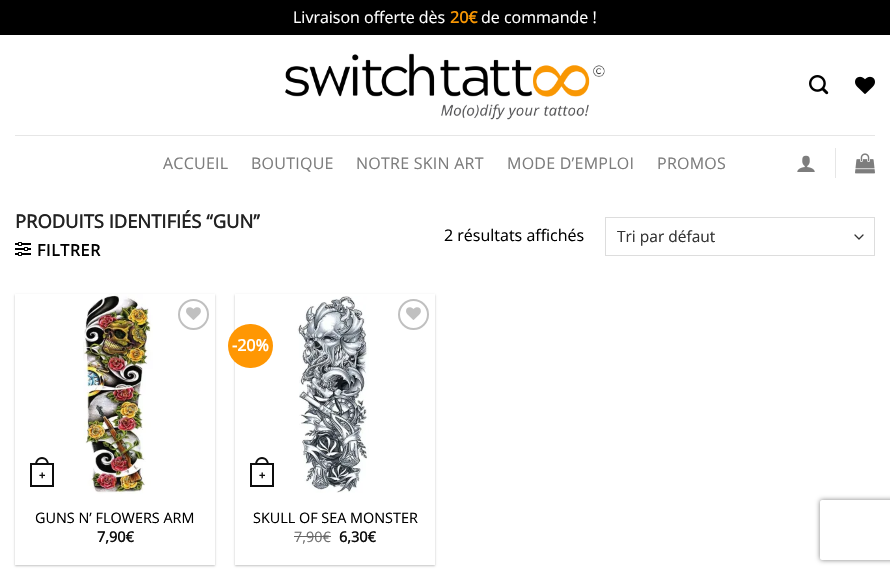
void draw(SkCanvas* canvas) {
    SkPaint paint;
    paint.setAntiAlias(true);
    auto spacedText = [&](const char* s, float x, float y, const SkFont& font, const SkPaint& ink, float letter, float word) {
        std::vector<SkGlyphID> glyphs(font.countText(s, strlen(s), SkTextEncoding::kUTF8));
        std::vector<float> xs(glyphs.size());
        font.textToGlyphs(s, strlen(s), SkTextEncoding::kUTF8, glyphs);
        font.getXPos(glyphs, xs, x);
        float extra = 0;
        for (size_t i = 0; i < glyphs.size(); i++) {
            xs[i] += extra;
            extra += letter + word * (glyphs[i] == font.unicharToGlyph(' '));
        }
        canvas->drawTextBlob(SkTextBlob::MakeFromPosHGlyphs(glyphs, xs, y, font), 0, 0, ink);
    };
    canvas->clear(0xFFFFFFFF);
    paint.setColor(0xFF000000);
    canvas->drawRect(SkRect::MakeXYWH(0, 0, 890, 35), paint);
    SkFont font1(fontMgr->matchFamilyStyle("Open Sans", SkFontStyle::Normal()), 16);
    font1.setSubpixel(true);
    paint.setColor(0xFFFFFFFF);
    canvas->drawString("Livraison offerte dès", 293, 23, font1, paint);
    SkFont font2(fontMgr->matchFamilyStyle("Open Sans", SkFontStyle::Bold()), 16);
    font2.setSubpixel(true);
    paint.setColor(0xFFF99703);
    canvas->drawString("20€", 450, 23, font2, paint);
    paint.setColor(0xFFFFFFFF);
    canvas->drawString("de commande !", 481, 23, font1, paint);
    canvas->drawImageRect(SkImages::DeferredFromEncodedData(SkData::MakeFromFileName("img1.png")), SkRect::MakeXYWH(285, 53, 320, 67), SkSamplingOptions());
    canvas->drawImageRect(SkImages::DeferredFromEncodedData(SkData::MakeFromFileName("img2.png")), SkRect::MakeXYWH(809, 75, 20, 20), SkSamplingOptions());
    canvas->drawImageRect(SkImages::DeferredFromEncodedData(SkData::MakeFromFileName("img3.png")), SkRect::MakeXYWH(855, 76, 20, 18), SkSamplingOptions());
    paint.setColor(0xFFE6E6E6);
    canvas->drawRect(SkRect::MakeXYWH(15, 135, 860, 1), paint);
    paint.setColor(0xFF7D7D7D);
    spacedText("ACCUEIL", 163, 169, font1, paint, 0.25f, 0);
    spacedText("BOUTIQUE", 251, 169, font1, paint, 0.25f, 0);
    spacedText("NOTRE SKIN ART", 356, 169, font1, paint, 0.25f, 0);
    spacedText("MODE D’EMPLOI", 507, 169, font1, paint, 0.25f, 0);
    spacedText("PROMOS", 657, 169, font1, paint, 0.25f, 0);
    canvas->drawImageRect(SkImages::DeferredFromEncodedData(SkData::MakeFromFileName("img4.png")), SkRect::MakeXYWH(797, 155, 18, 17), SkSamplingOptions());
    paint.setColor(0xFFE6E6E6);
    canvas->drawRect(SkRect::MakeXYWH(835, 148, 1, 30), paint);
    canvas->drawImageRect(SkImages::DeferredFromEncodedData(SkData::MakeFromFileName("img5.png")), SkRect::MakeXYWH(855, 153, 20, 21), SkSamplingOptions());
    SkFont font3(fontMgr->matchFamilyStyle("Open Sans", SkFontStyle::Bold()), 18.4f);
    font3.setSubpixel(true);
    paint.setColor(0xFF222222);
    canvas->drawString("PRODUITS IDENTIFIÉS “GUN”", 15, 228, font3, paint);
    canvas->drawImageRect(SkImages::DeferredFromEncodedData(SkData::MakeFromFileName("img6.png")), SkRect::MakeXYWH(15, 242, 16, 14), SkSamplingOptions());
    paint.setColor(0xFF000000);
    spacedText("FILTRER", 37, 256, font2, paint, 0.75f, 0);
    canvas->drawString("2 résultats affichés", 444, 241, font1, paint);
    paint.setStyle(SkPaint::kStroke_Style);
    paint.setStrokeWidth(1.3f);
    paint.setStrokeCap(SkPaint::kRound_Cap);
    paint.setStrokeJoin(SkPaint::kRound_Join);
    paint.setColor(0xFF333333);
    canvas->drawPath(SkPathBuilder().moveTo(855, 235).lineTo(859, 239).lineTo(863, 235).detach(), paint);
    paint.setStrokeWidth(1);
    paint.setStrokeCap(SkPaint::kButt_Cap);
    paint.setStrokeJoin(SkPaint::kMiter_Join);
    paint.setColor(0xFFDDDDDD);
    canvas->drawRect(SkRect::MakeXYWH(605.5f, 217.5f, 269, 38), paint);
    SkFont font4(fontMgr->matchFamilyStyle("Open Sans", SkFontStyle::Normal()), 15.5f);
    font4.setSubpixel(true);
    paint.setStyle(SkPaint::kFill_Style);
    paint.setColor(0xFF333333);
    canvas->drawString("Tri par défaut", 617, 242, font4, paint);
    canvas->save();
    canvas->clipPath(SkPathBuilder(SkPathFillType::kEvenOdd).moveTo(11, 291).lineTo(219, 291).lineTo(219, 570).lineTo(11, 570).close().moveTo(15, 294).lineTo(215, 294).lineTo(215, 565).lineTo(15, 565).close().detach(), true);
    paint.setColor(0x3D000000);
    paint.setMaskFilter(SkMaskFilter::MakeBlur(kNormal_SkBlurStyle, 1));
    canvas->drawRect(SkRect::MakeXYWH(15, 295, 200, 271), paint);
    paint.setMaskFilter(nullptr);
    canvas->restore();
    canvas->drawImageRect(SkImages::DeferredFromEncodedData(SkData::MakeFromFileName("img7.png")), SkRect::MakeXYWH(83, 294, 70, 200), SkSamplingOptions());
    paint.setStyle(SkPaint::kStroke_Style);
    paint.setStrokeWidth(2);
    paint.setColor(0xFFC0C0C0);
    canvas->drawCircle(193.5f, 314.5f, 14.5f, paint);
    canvas->drawImageRect(SkImages::DeferredFromEncodedData(SkData::MakeFromFileName("img8.png")), SkRect::MakeXYWH(186, 307, 15, 13), SkSamplingOptions());
    paint.setColor(0xFF0D0D0D);
    canvas->drawRect(SkRect::MakeXYWH(31, 464, 22, 22), paint);
    paint.setStyle(SkPaint::kFill_Style);
    canvas->drawPath(SkPathBuilder(SkPathFillType::kEvenOdd).moveTo(42, 457).cubicTo(46.5f, 457, 49, 461, 49, 465).lineTo(35, 465).cubicTo(35, 461, 37.5f, 457, 42, 457).close().moveTo(42, 459).cubicTo(45.5f, 459, 47, 462, 47, 465).lineTo(37, 465).cubicTo(37, 462, 38.5f, 459, 42, 459).close().detach(), paint);
    SkFont font5(fontMgr->matchFamilyStyle("Liberation Sans", SkFontStyle::Bold()), 11);
    font5.setSubpixel(true);
    canvas->drawString("+", 39, 479, font5, paint);
    SkFont font6(fontMgr->matchFamilyStyle("Open Sans", SkFontStyle::Normal()), 14.4f);
    font6.setSubpixel(true);
    paint.setColor(0xFF000000);
    canvas->drawString("GUNS N’ FLOWERS ARM", 35, 523, font6, paint);
    SkFont font7(fontMgr->matchFamilyStyle("Open Sans", SkFontStyle::Bold()), 14.4f);
    font7.setSubpixel(true);
    paint.setColor(0xFF0D0D0D);
    canvas->drawString("7,90€", 97, 542, font7, paint);
    canvas->save();
    canvas->clipPath(SkPathBuilder(SkPathFillType::kEvenOdd).moveTo(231, 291).lineTo(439, 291).lineTo(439, 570).lineTo(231, 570).close().moveTo(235, 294).lineTo(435, 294).lineTo(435, 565).lineTo(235, 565).close().detach(), true);
    paint.setColor(0x3D000000);
    paint.setMaskFilter(SkMaskFilter::MakeBlur(kNormal_SkBlurStyle, 1));
    canvas->drawRect(SkRect::MakeXYWH(235, 295, 200, 271), paint);
    paint.setMaskFilter(nullptr);
    canvas->restore();
    paint.setColor(0xFFFF9703);
    canvas->drawRoundRect(SkRect::MakeXYWH(228, 324, 45, 44), 22, 22, paint);
    paint.setColor(0xFFFFFFFF);
    canvas->drawString("-20%", 232, 351, font2, paint);
    canvas->drawImageRect(SkImages::DeferredFromEncodedData(SkData::MakeFromFileName("img9.png")), SkRect::MakeXYWH(297, 296, 72, 197), SkSamplingOptions());
    paint.setStyle(SkPaint::kStroke_Style);
    paint.setColor(0xFFC0C0C0);
    canvas->drawCircle(413.5f, 314.5f, 14.5f, paint);
    canvas->drawImageRect(SkImages::DeferredFromEncodedData(SkData::MakeFromFileName("img8.png")), SkRect::MakeXYWH(406, 307, 15, 13), SkSamplingOptions());
    paint.setColor(0xFF0D0D0D);
    canvas->drawRect(SkRect::MakeXYWH(251, 464, 22, 22), paint);
    paint.setStyle(SkPaint::kFill_Style);
    canvas->drawPath(SkPathBuilder(SkPathFillType::kEvenOdd).moveTo(262, 457).cubicTo(266.5f, 457, 269, 461, 269, 465).lineTo(255, 465).cubicTo(255, 461, 257.5f, 457, 262, 457).close().moveTo(262, 459).cubicTo(265.5f, 459, 267, 462, 267, 465).lineTo(257, 465).cubicTo(257, 462, 258.5f, 459, 262, 459).close().detach(), paint);
    canvas->drawString("+", 259, 479, font5, paint);
    paint.setColor(0xFF000000);
    canvas->drawString("SKULL OF SEA MONSTER", 253, 523, font6, paint);
    paint.setColor(0xFF707070);
    canvas->drawString("7,90€", 294, 542, font6, paint);
    paint.setColor(0xFF666666);
    canvas->drawRect(SkRect::MakeXYWH(294, 536, 37, 1), paint);
    paint.setColor(0xFF0D0D0D);
    canvas->drawString("6,30€", 339, 542, font7, paint);
    canvas->save();
    canvas->clipPath(SkPathBuilder(SkPathFillType::kEvenOdd).moveTo(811, 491).lineTo(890, 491).lineTo(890, 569).lineTo(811, 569).close().moveTo(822, 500).lineTo(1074, 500).cubicTo(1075, 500, 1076, 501, 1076, 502).lineTo(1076, 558).cubicTo(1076, 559, 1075, 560, 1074, 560).lineTo(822, 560).cubicTo(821, 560, 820, 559, 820, 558).lineTo(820, 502).cubicTo(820, 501, 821, 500, 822, 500).close().detach(), true);
    paint.setColor(0xFF808080);
    paint.setMaskFilter(SkMaskFilter::MakeBlur(kNormal_SkBlurStyle, 2.5f));
    canvas->drawRoundRect(SkRect::MakeXYWH(820, 500, 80, 60), 2, 2, paint);
    paint.setMaskFilter(nullptr);
    canvas->restore();
}
